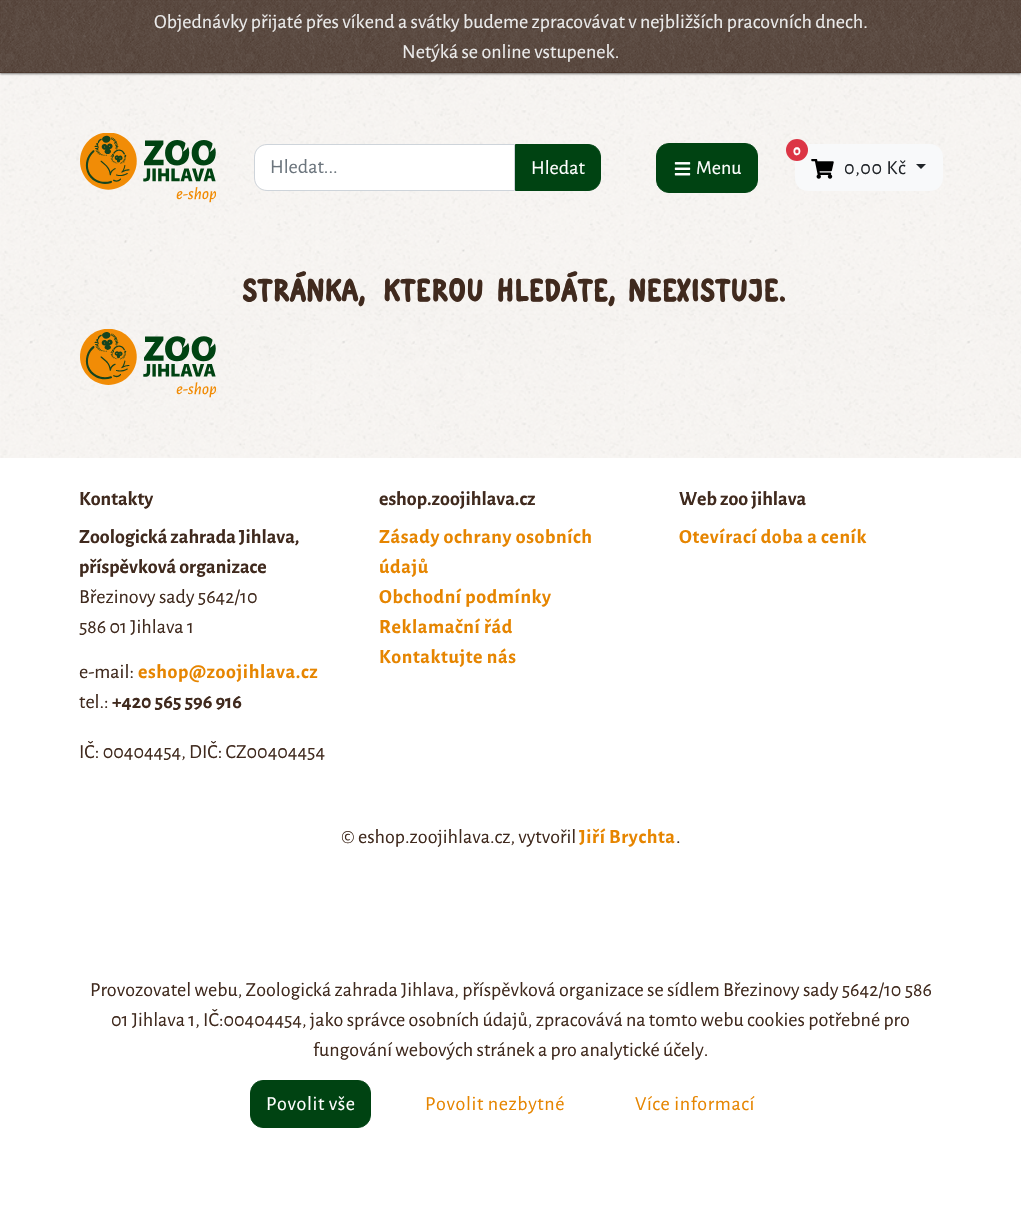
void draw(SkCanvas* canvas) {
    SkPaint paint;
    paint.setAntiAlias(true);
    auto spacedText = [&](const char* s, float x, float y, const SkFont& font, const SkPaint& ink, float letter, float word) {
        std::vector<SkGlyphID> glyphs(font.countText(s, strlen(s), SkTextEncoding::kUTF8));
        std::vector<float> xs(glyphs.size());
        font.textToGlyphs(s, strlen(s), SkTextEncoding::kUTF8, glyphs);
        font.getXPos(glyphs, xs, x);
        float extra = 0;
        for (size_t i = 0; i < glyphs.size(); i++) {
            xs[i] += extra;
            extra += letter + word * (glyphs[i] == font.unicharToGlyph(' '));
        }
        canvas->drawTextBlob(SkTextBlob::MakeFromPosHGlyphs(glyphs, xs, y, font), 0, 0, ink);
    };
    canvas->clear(0xFFFFFFFF);
    canvas->drawImageRect(SkImages::DeferredFromEncodedData(SkData::MakeFromFileName("img1.png")), SkRect::MakeXYWH(0, 73, 1021, 385), SkSamplingOptions());
    paint.setColor(0x80000000);
    paint.setMaskFilter(SkMaskFilter::MakeBlur(kNormal_SkBlurStyle, 1));
    canvas->drawRect(SkRect::MakeXYWH(0, 1, 1021, 73), paint);
    paint.setMaskFilter(nullptr);
    paint.setColor(0xFF402A1E);
    canvas->drawRect(SkRect::MakeXYWH(0, 0, 1021, 73), paint);
    SkFont font1(fontMgr->matchFamilyStyle("Alegreya Sans", SkFontStyle::Normal()), 20);
    font1.setSubpixel(true);
    paint.setColor(0xFFFFFFFF);
    canvas->drawString("Objednávky přijaté přes víkend a svátky budeme zpracovávat v nejbližších pracovních dnech.", 154, 28, font1, paint);
    canvas->drawString("Netýká se online vstupenek.", 402, 58, font1, paint);
    canvas->drawImageRect(SkImages::DeferredFromEncodedData(SkData::MakeFromFileName("img2.png")), SkRect::MakeXYWH(0, 0, 1021, 73), SkSamplingOptions());
    canvas->drawImageRect(SkImages::DeferredFromEncodedData(SkData::MakeFromFileName("img3.png")), SkRect::MakeXYWH(80, 133, 136, 70), SkSamplingOptions());
    canvas->drawPath(SkPathBuilder().moveTo(266, 145).lineTo(514, 145).lineTo(514, 190).lineTo(266, 190).cubicTo(260, 190, 255, 185, 255, 179).lineTo(255, 156).cubicTo(255, 150, 260, 145, 266, 145).close().detach(), paint);
    paint.setStyle(SkPaint::kStroke_Style);
    paint.setStrokeWidth(1);
    paint.setColor(0xFFCED4DA);
    canvas->drawPath(SkPathBuilder().moveTo(267, 144.5f).lineTo(514.5f, 144.5f).lineTo(514.5f, 190.5f).lineTo(267, 190.5f).cubicTo(260, 190.5f, 254.5f, 185, 254.5f, 178).lineTo(254.5f, 157).cubicTo(254.5f, 150, 260, 144.5f, 267, 144.5f).close().detach(), paint);
    paint.setStyle(SkPaint::kFill_Style);
    paint.setColor(0xFF6C757D);
    canvas->drawString("Hledat...", 270, 173, font1, paint);
    paint.setColor(0xFF004312);
    canvas->drawPath(SkPathBuilder().moveTo(515.5f, 144.5f).lineTo(588, 144.5f).cubicTo(595, 144.5f, 600.5f, 150, 600.5f, 157).lineTo(600.5f, 178).cubicTo(600.5f, 185, 595, 190.5f, 588, 190.5f).lineTo(515.5f, 190.5f).close().detach(), paint);
    paint.setStyle(SkPaint::kStroke_Style);
    canvas->drawPath(SkPathBuilder().moveTo(515.5f, 144.5f).lineTo(588, 144.5f).cubicTo(595, 144.5f, 600.5f, 150, 600.5f, 157).lineTo(600.5f, 178).cubicTo(600.5f, 185, 595, 190.5f, 588, 190.5f).lineTo(515.5f, 190.5f).close().detach(), paint);
    paint.setStyle(SkPaint::kFill_Style);
    paint.setColor(0xFFFFFFFF);
    canvas->drawString("Hledat", 531, 174, font1, paint);
    paint.setColor(0xFF004312);
    canvas->drawRoundRect(SkRect::MakeXYWH(656.5f, 143.5f, 101, 49), 12.5f, 12.5f, paint);
    paint.setStyle(SkPaint::kStroke_Style);
    canvas->drawRoundRect(SkRect::MakeXYWH(656.5f, 143.5f, 101, 49), 12.5f, 12.5f, paint);
    canvas->drawImageRect(SkImages::DeferredFromEncodedData(SkData::MakeFromFileName("img4.png")), SkRect::MakeXYWH(674, 162, 17, 14), SkSamplingOptions());
    paint.setStyle(SkPaint::kFill_Style);
    paint.setColor(0xFFFFFFFF);
    canvas->drawString("Menu", 696, 174, font1, paint);
    paint.setColor(0xFFF8F9FA);
    canvas->drawRoundRect(SkRect::MakeXYWH(795, 144, 148, 47), 13, 13, paint);
    paint.setColor(0xFFDC3545);
    canvas->drawCircle(797, 150, 11, paint);
    SkFont font2(fontMgr->matchFamilyStyle("Alegreya Sans", SkFontStyle::Bold()), 15);
    font2.setSubpixel(true);
    paint.setColor(0xFFFFFFFF);
    spacedText("0", 793, 155, font2, paint, 0.6f, 0);
    canvas->drawImageRect(SkImages::DeferredFromEncodedData(SkData::MakeFromFileName("img5.png")), SkRect::MakeXYWH(811, 159, 23, 20), SkSamplingOptions());
    paint.setColor(0xFF212529);
    spacedText("0,00 Kč", 844, 174, font1, paint, 0.6f, 0);
    canvas->drawPath(SkPathBuilder().moveTo(916, 164).lineTo(926, 164).lineTo(921, 169).close().detach(), paint);
    SkFont font3(fontMgr->matchFamilyStyle("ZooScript", SkFontStyle::Bold()), 30);
    font3.setSubpixel(true);
    paint.setColor(0xFF402A1E);
    canvas->drawString("Stránka,", 242, 301, font3, paint);
    canvas->drawString("kterou hledáte, neexistuje.", 383, 301, font3, paint);
    canvas->drawImageRect(SkImages::DeferredFromEncodedData(SkData::MakeFromFileName("img6.png")), SkRect::MakeXYWH(80, 329, 136, 69), SkSamplingOptions());
    SkFont font4(fontMgr->matchFamilyStyle("Alegreya Sans", SkFontStyle::Bold()), 20);
    font4.setSubpixel(true);
    canvas->drawString("Kontakty", 79, 505, font4, paint);
    canvas->drawString("Zoologická zahrada Jihlava,", 79, 543, font4, paint);
    canvas->drawString("příspěvková organizace", 79, 573, font4, paint);
    canvas->drawString("Březinovy sady 5642/10", 79, 603, font1, paint);
    canvas->drawString("586 01 Jihlava 1", 79, 633, font1, paint);
    canvas->drawString("e-mail:", 79, 678, font1, paint);
    paint.setColor(0xFFE68500);
    spacedText("eshop@zoojihlava.cz", 138, 678, font4, paint, 0.6f, 0);
    paint.setColor(0xFF402A1E);
    canvas->drawString("tel.:", 79, 708, font1, paint);
    canvas->drawString("+420 565 596 916", 112, 708, font4, paint);
    canvas->drawString("IČ: 00404454, DIČ: CZ00404454", 79, 758, font1, paint);
    canvas->drawString("eshop.zoojihlava.cz", 379, 505, font4, paint);
    paint.setColor(0xFFE68500);
    spacedText("Zásady ochrany osobních", 379, 543, font4, paint, 0.6f, 0);
    spacedText("údajů", 379, 573, font4, paint, 0.6f, 0);
    spacedText("Obchodní podmínky", 379, 603, font4, paint, 0.6f, 0);
    spacedText("Reklamační řád", 379, 633, font4, paint, 0.6f, 0);
    spacedText("Kontaktujte nás", 379, 663, font4, paint, 0.6f, 0);
    paint.setColor(0xFF402A1E);
    canvas->drawString("Web zoo jihlava", 679, 505, font4, paint);
    paint.setColor(0xFFE68500);
    spacedText("Otevírací doba a ceník", 679, 543, font4, paint, 0.6f, 0);
    paint.setColor(0xFF402A1E);
    canvas->drawString("© eshop.zoojihlava.cz, vytvořil", 341, 843, font1, paint);
    paint.setColor(0xFFE68500);
    spacedText("Jiří Brychta", 579, 843, font4, paint, 0.6f, 0);
    paint.setColor(0xFF402A1E);
    canvas->drawString(".", 676, 843, font1, paint);
    canvas->drawString("Provozovatel webu, Zoologická zahrada Jihlava, příspěvková organizace se sídlem Březinovy sady 5642/10 586", 90, 996, font1, paint);
    canvas->drawString("01 Jihlava 1, IČ:00404454, jako správce osobních údajů, zpracovává na tomto webu cookies potřebné pro", 111, 1026, font1, paint);
    canvas->drawString("fungování webových stránek a pro analytické účely.", 313, 1056, font1, paint);
    paint.setColor(0xFF004312);
    canvas->drawRoundRect(SkRect::MakeXYWH(250.5f, 1080.5f, 120, 47), 12.5f, 12.5f, paint);
    paint.setStyle(SkPaint::kStroke_Style);
    canvas->drawRoundRect(SkRect::MakeXYWH(250.5f, 1080.5f, 120, 47), 12.5f, 12.5f, paint);
    paint.setStyle(SkPaint::kFill_Style);
    paint.setColor(0xFFFFFFFF);
    spacedText("Povolit vše", 266, 1110, font1, paint, 0.6f, 0);
    paint.setColor(0xFFE68500);
    spacedText("Povolit nezbytné", 425, 1110, font1, paint, 0.6f, 0);
    spacedText("Více informací", 635, 1110, font1, paint, 0.6f, 0);
}
